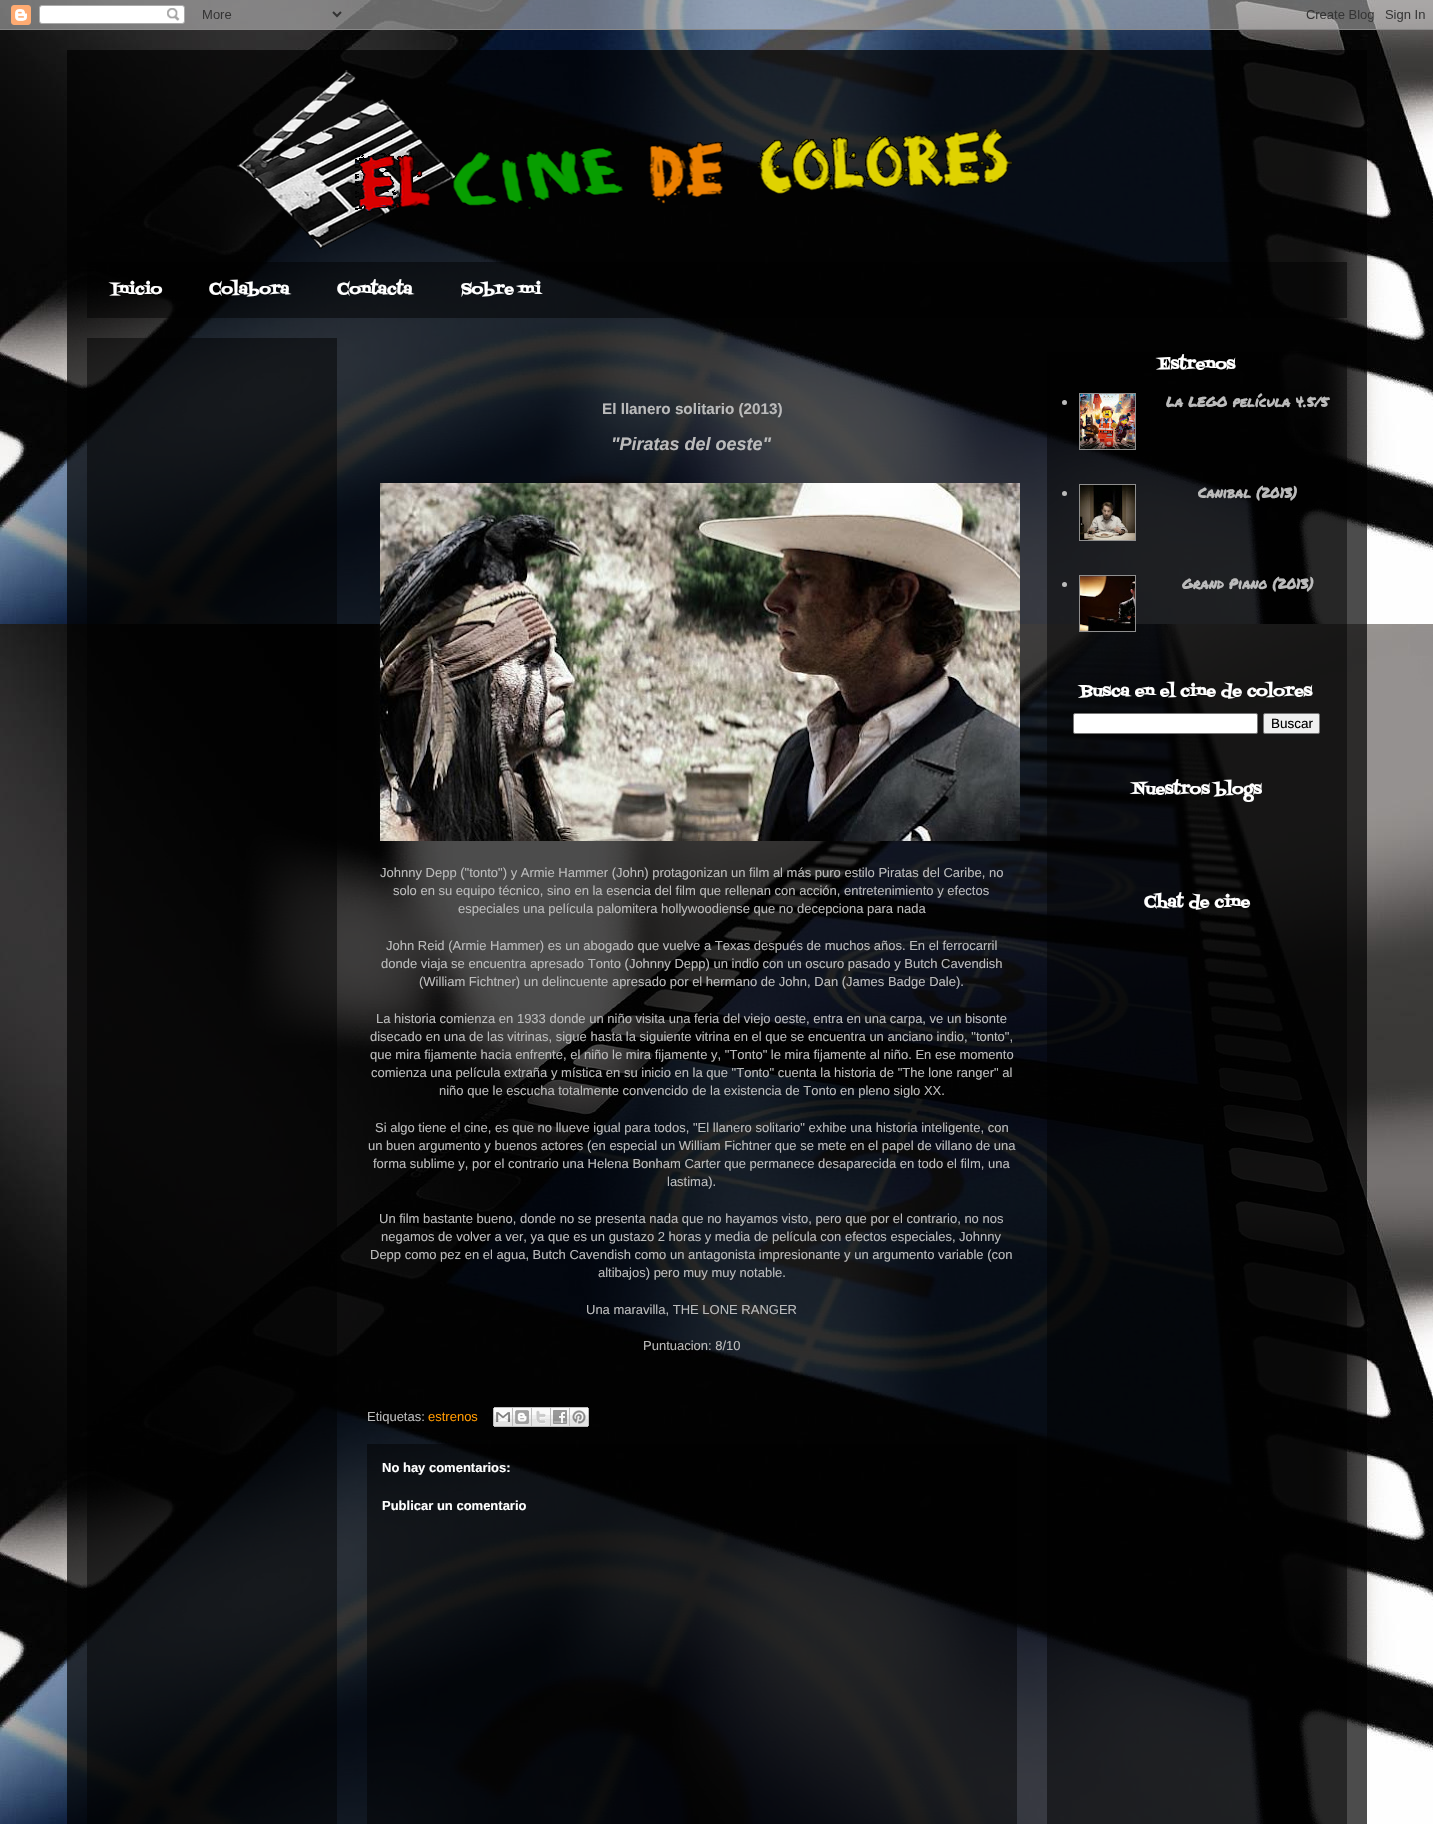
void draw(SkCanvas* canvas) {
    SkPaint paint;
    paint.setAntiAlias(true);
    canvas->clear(0xFFFFFFFF);
    canvas->drawImageRect(SkImages::DeferredFromEncodedData(SkData::MakeFromFileName("img1.png")), SkRect::MakeXYWH(0, 0, 1433, 1824), SkSamplingOptions());
    canvas->drawImageRect(SkImages::DeferredFromEncodedData(SkData::MakeFromFileName("img2.png")), SkRect::MakeXYWH(0, 0, 1433, 30), SkSamplingOptions());
    paint.setColor(0xB3000000);
    canvas->drawRect(SkRect::MakeXYWH(67, 50, 1300, 1774), paint);
    canvas->drawImageRect(SkImages::DeferredFromEncodedData(SkData::MakeFromFileName("img3.png")), SkRect::MakeXYWH(237, 70, 776, 179), SkSamplingOptions());
    paint.setColor(0x80000000);
    canvas->drawRect(SkRect::MakeXYWH(87, 262, 1260, 56), paint);
    SkFont font1(fontMgr->matchFamilyStyle("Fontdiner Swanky", SkFontStyle::Bold()), 16);
    font1.setSubpixel(true);
    paint.setColor(0xFFFFFFFF);
    canvas->drawString("Inicio", 111, 294, font1, paint);
    canvas->drawString("Colabora", 209, 294, font1, paint);
    canvas->drawString("Contacta", 337, 294, font1, paint);
    canvas->drawString("Sobre mi", 461, 294, font1, paint);
    paint.setColor(0x80000000);
    canvas->drawRect(SkRect::MakeXYWH(87, 338, 250, 1486), paint);
    canvas->drawRect(SkRect::MakeXYWH(1047, 352, 300, 1472), paint);
    SkFont font2(fontMgr->matchFamilyStyle("Liberation Sans", SkFontStyle::Bold()), 15.25f);
    font2.setSubpixel(true);
    paint.setColor(0xFFBBBBBB);
    canvas->drawString("El llanero solitario (2013)", 602, 414, font2, paint);
    SkFont font3(fontMgr->matchFamilyStyle("Liberation Sans", SkFontStyle::BoldItalic()), 18);
    font3.setSubpixel(true);
    canvas->drawString("\"Piratas del oeste\"", 611, 450, font3, paint);
    canvas->drawImageRect(SkImages::DeferredFromEncodedData(SkData::MakeFromFileName("img4.png")), SkRect::MakeXYWH(380, 483, 640, 358), SkSamplingOptions());
    SkFont font4(fontMgr->matchFamilyStyle("Liberation Sans", SkFontStyle::Normal()), 13);
    font4.setSubpixel(true);
    canvas->drawString("Johnny Depp (\"tonto\") y Armie Hammer (John) protagonizan un film al más puro estilo Piratas del Caribe, no", 380, 877, font4, paint);
    canvas->drawString("solo en su equipo técnico, sino en la esencia del film que rellenan con acción, entretenimiento y efectos", 393, 895, font4, paint);
    canvas->drawString("especiales una película palomitera hollywoodiense que no decepciona para nada", 458, 913, font4, paint);
    canvas->drawString("John Reid (Armie Hammer) es un abogado que vuelve a Texas después de muchos años. En el ferrocarril", 386, 950, font4, paint);
    canvas->drawString("donde viaja se encuentra apresado Tonto (Johnny Depp) un indio con un oscuro pasado y Butch Cavendish", 381, 968, font4, paint);
    canvas->drawString("(William Fichtner) un delincuente apresado por el hermano de John, Dan (James Badge Dale).", 419, 986, font4, paint);
    canvas->drawString("La historia comienza en 1933 donde un niño visita una feria del viejo oeste, entra en una carpa, ve un bisonte", 376, 1023, font4, paint);
    canvas->drawString("disecado en una de las vitrinas, sigue hasta la siguiente vitrina en el que se encuentra un anciano indio, \"tonto\",", 370, 1041, font4, paint);
    canvas->drawString("que mira fijamente hacia enfrente, el niño le mira fijamente y, \"Tonto\" le mira fijamente al niño. En ese momento", 370, 1059, font4, paint);
    canvas->drawString("comienza una película extraña y mística en su inicio en la que \"Tonto\" cuenta la historia de \"The lone ranger\" al", 371, 1077, font4, paint);
    canvas->drawString("niño que le escucha totalmente convencido de la existencia de Tonto en pleno siglo XX.", 439, 1095, font4, paint);
    canvas->drawString("Si algo tiene el cine, es que no llueve igual para todos, \"El llanero solitario\" exhibe una historia inteligente, con", 375, 1132, font4, paint);
    canvas->drawString("un buen argumento y buenos actores (en especial un William Fichtner que se mete en el papel de villano de una", 368, 1150, font4, paint);
    canvas->drawString("forma sublime y, por el contrario una Helena Bonham Carter que permanece desaparecida en todo el film, una", 373, 1168, font4, paint);
    canvas->drawString("lastima).", 667, 1186, font4, paint);
    canvas->drawString("Un film bastante bueno, donde no se presenta nada que no hayamos visto, pero que por el contrario, no nos", 379, 1223, font4, paint);
    canvas->drawString("negamos de volver a ver, ya que es un gustazo 2 horas y media de película con efectos especiales, Johnny", 381, 1241, font4, paint);
    canvas->drawString("Depp como pez en el agua, Butch Cavendish como un antagonista impresionante y un argumento variable (con", 370, 1259, font4, paint);
    canvas->drawString("altibajos) pero muy muy notable.", 598, 1277, font4, paint);
    canvas->drawString("Una maravilla, THE LONE RANGER", 586, 1314, font4, paint);
    canvas->drawString("Puntuacion: 8/10", 643, 1350, font4, paint);
    canvas->drawString("Etiquetas:", 367, 1421, font4, paint);
    paint.setColor(0xFFFF9900);
    canvas->drawString("estrenos", 428, 1421, font4, paint);
    canvas->drawImageRect(SkImages::DeferredFromEncodedData(SkData::MakeFromFileName("img5.png")), SkRect::MakeXYWH(493, 1407, 20, 20), SkSamplingOptions());
    canvas->drawImageRect(SkImages::DeferredFromEncodedData(SkData::MakeFromFileName("img6.png")), SkRect::MakeXYWH(513, 1407, 19, 20), SkSamplingOptions());
    canvas->drawImageRect(SkImages::DeferredFromEncodedData(SkData::MakeFromFileName("img7.png")), SkRect::MakeXYWH(532, 1407, 19, 20), SkSamplingOptions());
    canvas->drawImageRect(SkImages::DeferredFromEncodedData(SkData::MakeFromFileName("img8.png")), SkRect::MakeXYWH(551, 1407, 19, 20), SkSamplingOptions());
    canvas->drawImageRect(SkImages::DeferredFromEncodedData(SkData::MakeFromFileName("img9.png")), SkRect::MakeXYWH(570, 1407, 19, 20), SkSamplingOptions());
    paint.setColor(0x80000000);
    canvas->drawRect(SkRect::MakeXYWH(367, 1444, 650, 380), paint);
    SkFont font5(fontMgr->matchFamilyStyle("Liberation Sans", SkFontStyle::Bold()), 13);
    font5.setSubpixel(true);
    paint.setColor(0xFFFFFFFF);
    canvas->drawString("No hay comentarios:", 382, 1472, font5, paint);
    canvas->drawString("Publicar un comentario", 382, 1510, font5, paint);
    canvas->drawString("Estrenos", 1158, 369, font1, paint);
    paint.setColor(0xFFBBBBBB);
    canvas->drawCircle(1064.5f, 402.5f, 2.5f, paint);
    paint.setStyle(SkPaint::kStroke_Style);
    paint.setStrokeWidth(1);
    paint.setColor(0xFF8F8F8F);
    canvas->drawRect(SkRect::MakeXYWH(1079.5f, 393.5f, 56, 56), paint);
    canvas->drawImageRect(SkImages::DeferredFromEncodedData(SkData::MakeFromFileName("img10.png")), SkRect::MakeXYWH(1080, 394, 55, 55), SkSamplingOptions());
    SkFont font6(fontMgr->matchFamilyStyle("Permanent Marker", SkFontStyle::Bold()), 14);
    font6.setSubpixel(true);
    paint.setStyle(SkPaint::kFill_Style);
    paint.setColor(0xFFBBBBBB);
    canvas->drawString("La LEGO película 4.5/5", 1166, 407, font6, paint);
    canvas->drawCircle(1064.5f, 493.5f, 2.5f, paint);
    paint.setStyle(SkPaint::kStroke_Style);
    paint.setColor(0xFF8F8F8F);
    canvas->drawRect(SkRect::MakeXYWH(1079.5f, 484.5f, 56, 56), paint);
    canvas->drawImageRect(SkImages::DeferredFromEncodedData(SkData::MakeFromFileName("img11.png")), SkRect::MakeXYWH(1080, 485, 55, 55), SkSamplingOptions());
    paint.setStyle(SkPaint::kFill_Style);
    paint.setColor(0xFFBBBBBB);
    canvas->drawString("Canibal (2013)", 1198, 498, font6, paint);
    canvas->drawCircle(1064.5f, 584.5f, 2.5f, paint);
    paint.setStyle(SkPaint::kStroke_Style);
    paint.setColor(0xFF8F8F8F);
    canvas->drawRect(SkRect::MakeXYWH(1079.5f, 575.5f, 56, 56), paint);
    canvas->drawImageRect(SkImages::DeferredFromEncodedData(SkData::MakeFromFileName("img12.png")), SkRect::MakeXYWH(1080, 576, 55, 55), SkSamplingOptions());
    paint.setStyle(SkPaint::kFill_Style);
    paint.setColor(0xFFBBBBBB);
    canvas->drawString("Grand Piano (2013)", 1182, 589, font6, paint);
    paint.setColor(0xFFFFFFFF);
    canvas->drawString("Busca en el cine de colores", 1080, 696, font1, paint);
    canvas->drawRoundRect(SkRect::MakeXYWH(1073.5f, 713.5f, 184, 20), 1.5f, 1.5f, paint);
    paint.setStyle(SkPaint::kStroke_Style);
    paint.setColor(0xFF767676);
    canvas->drawRoundRect(SkRect::MakeXYWH(1073.5f, 713.5f, 184, 20), 1.5f, 1.5f, paint);
    paint.setStyle(SkPaint::kFill_Style);
    paint.setColor(0xFFEFEFEF);
    canvas->drawRoundRect(SkRect::MakeXYWH(1263.5f, 713.5f, 56, 20), 1.5f, 1.5f, paint);
    paint.setStyle(SkPaint::kStroke_Style);
    paint.setColor(0xFF767676);
    canvas->drawRoundRect(SkRect::MakeXYWH(1263.5f, 713.5f, 56, 20), 1.5f, 1.5f, paint);
    SkFont font7(fontMgr->matchFamilyStyle("Liberation Sans", SkFontStyle::Normal()), 13.5f);
    font7.setSubpixel(true);
    paint.setStyle(SkPaint::kFill_Style);
    paint.setColor(0xFF000000);
    canvas->drawString("Buscar", 1271, 728, font7, paint);
    paint.setColor(0xFFFFFFFF);
    canvas->drawString("Nuestros blogs", 1132, 794, font1, paint);
    canvas->drawString("Chat de cine", 1144, 907, font1, paint);
}
